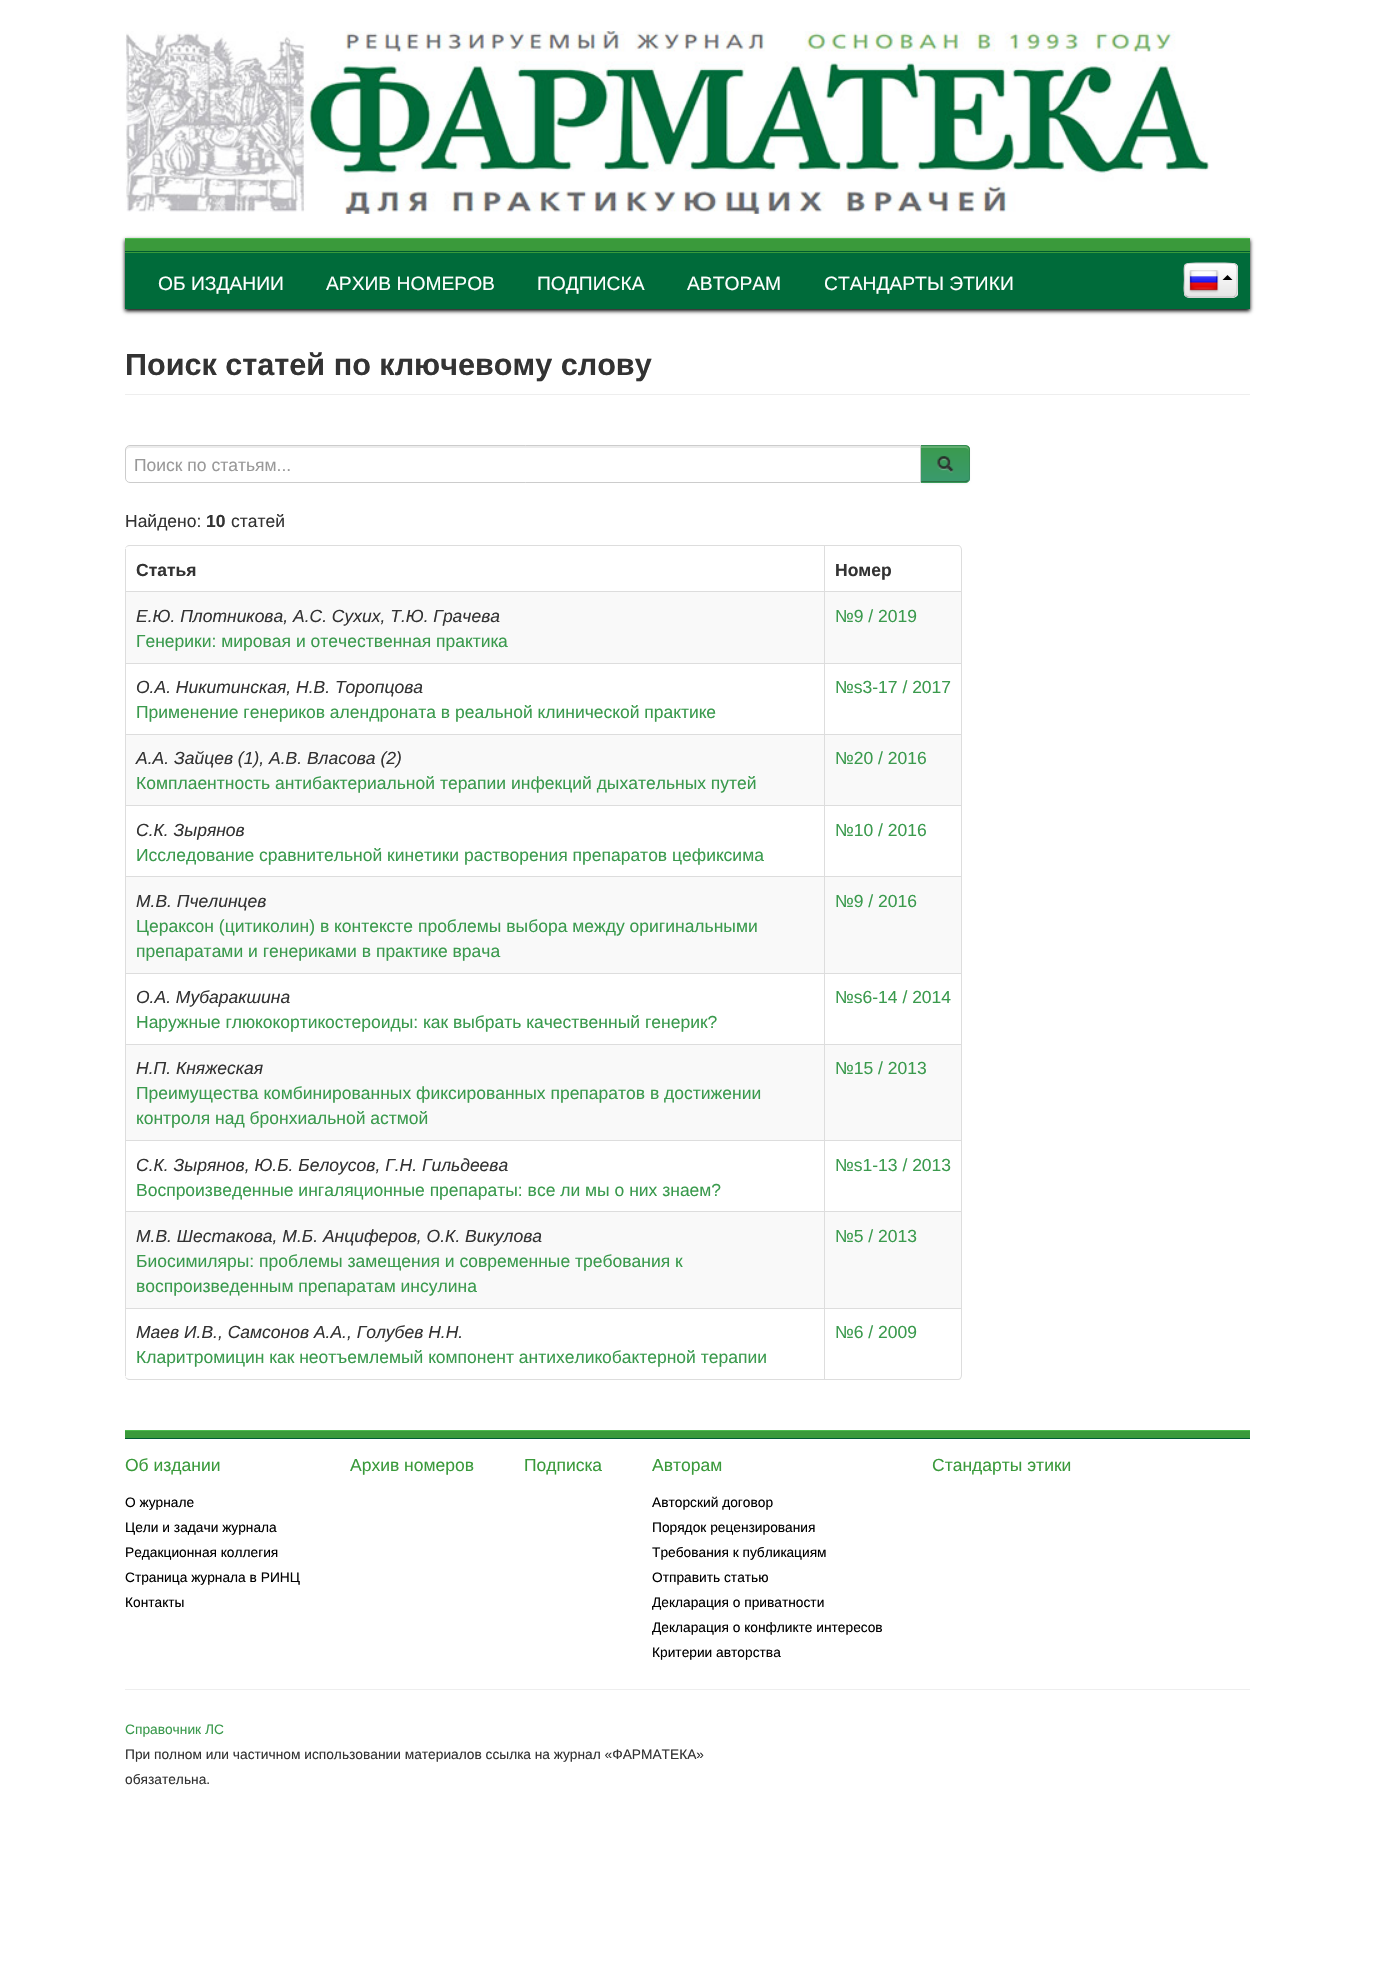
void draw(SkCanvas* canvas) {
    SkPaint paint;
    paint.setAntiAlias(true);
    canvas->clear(0xFFFFFFFF);
    canvas->drawImageRect(SkImages::DeferredFromEncodedData(SkData::MakeFromFileName("img1.png")), SkRect::MakeXYWH(125, 31, 1085, 183), SkSamplingOptions());
    paint.setColor(0xFF000000);
    paint.setMaskFilter(SkMaskFilter::MakeBlur(kNormal_SkBlurStyle, 2));
    canvas->drawRect(SkRect::MakeXYWH(125, 240, 1125, 71), paint);
    paint.setMaskFilter(nullptr);
    paint.setColor(0xFF3A9A3B);
    canvas->drawRect(SkRect::MakeXYWH(125, 239, 1125, 14), paint);
    paint.setColor(0xFF4CBB4D);
    canvas->drawRect(SkRect::MakeXYWH(125, 238, 1125, 1), paint);
    paint.setColor(0xFF005C32);
    canvas->drawRect(SkRect::MakeXYWH(125, 251, 1125, 1), paint);
    paint.setColor(0xFF006B3A);
    canvas->drawRect(SkRect::MakeXYWH(125, 253, 1125, 56), paint);
    SkFont font1(fontMgr->matchFamilyStyle("Liberation Sans", SkFontStyle::Normal()), 19.25f);
    font1.setSubpixel(true);
    paint.setColor(0xFFFFFFFF);
    canvas->drawString("ОБ ИЗДАНИИ", 158, 290, font1, paint);
    canvas->drawString("АРХИВ НОМЕРОВ", 326, 290, font1, paint);
    canvas->drawString("ПОДПИСКА", 537, 290, font1, paint);
    canvas->drawString("АВТОРАМ", 687, 290, font1, paint);
    canvas->drawString("СТАНДАРТЫ ЭТИКИ", 824, 290, font1, paint);
    paint.setColor(0xFFF5F5F5);
    canvas->drawRoundRect(SkRect::MakeXYWH(1184, 263, 54, 35), 5, 5, paint);
    canvas->save();
    canvas->clipPath(SkPathBuilder().moveTo(1189, 263).lineTo(1233, 263).cubicTo(1236, 263, 1238, 265, 1238, 268).lineTo(1238, 293).cubicTo(1238, 296, 1236, 298, 1233, 298).lineTo(1189, 298).cubicTo(1186, 298, 1184, 296, 1184, 293).lineTo(1184, 268).cubicTo(1184, 265, 1186, 263, 1189, 263).close().detach(), true);
    {
        const SkColor colors[] = {0xFFFFFFFF, 0xFFE6E6E6};
        const float stops[] = {0, 1};
        const SkPoint ends[] = {{1211, 264}, {1211, 296}};
        paint.setShader(SkGradientShader::MakeLinear(ends, colors, stops, 2, SkTileMode::kClamp));
        paint.setAlpha(255);
    }
    canvas->drawRect(SkRect::MakeXYWH(1184, 264, 54, 32), paint);
    canvas->restore();
    paint.setStyle(SkPaint::kStroke_Style);
    paint.setStrokeWidth(1.2f);
    paint.setShader(nullptr);
    paint.setColor(0xFFB3B3B3);
    canvas->drawPath(SkPathBuilder().moveTo(1235.5f, 295.5f).cubicTo(1235, 296.5f, 1233.5f, 297, 1232.5f, 297).lineTo(1189, 297).cubicTo(1187.5f, 297, 1186.5f, 296.5f, 1185.5f, 295.5f).detach(), paint);
    paint.setColor(0xFFCCCCCC);
    canvas->drawPath(SkPathBuilder().moveTo(1185.5f, 295.5f).cubicTo(1183, 293, 1184.5f, 283, 1184.5f, 280).cubicTo(1184.5f, 264, 1181, 263, 1196, 263).lineTo(1225, 263).cubicTo(1240, 263, 1237, 264, 1237, 280).cubicTo(1237, 283, 1238, 293, 1235.5f, 295.5f).detach(), paint);
    canvas->drawImageRect(SkImages::DeferredFromEncodedData(SkData::MakeFromFileName("img2.png")), SkRect::MakeXYWH(1189, 270, 30, 23), SkSamplingOptions());
    paint.setStyle(SkPaint::kFill_Style);
    paint.setColor(0xFF000000);
    canvas->drawPath(SkPathBuilder().moveTo(1232.5f, 280).lineTo(1222.5f, 280).lineTo(1227.5f, 275).close().detach(), paint);
    paint.setColor(0xFFEEEEEE);
    canvas->drawRect(SkRect::MakeXYWH(125, 394, 1125, 1), paint);
    SkFont font2(fontMgr->matchFamilyStyle("Liberation Sans", SkFontStyle::Bold()), 30.6f);
    font2.setSubpixel(true);
    paint.setColor(0xFF333333);
    canvas->drawString("Поиск статей по ключевому слову", 125, 375, font2, paint);
    paint.setColor(0x0D000000);
    paint.setMaskFilter(SkMaskFilter::MakeBlur(kNormal_SkBlurStyle, 1));
    canvas->drawRoundRect(SkRect::MakeXYWH(920, 446, 50, 38), 5, 5, paint);
    paint.setMaskFilter(nullptr);
    paint.setColor(0xFF3A9A5A);
    canvas->drawPath(SkPathBuilder().moveTo(920, 445).lineTo(965, 445).cubicTo(968, 445, 970, 447, 970, 450).lineTo(970, 478).cubicTo(970, 481, 968, 483, 965, 483).lineTo(920, 483).close().detach(), paint);
    canvas->save();
    canvas->clipPath(SkPathBuilder().moveTo(920, 445).lineTo(965, 445).cubicTo(968, 445, 970, 447, 970, 450).lineTo(970, 478).cubicTo(970, 481, 968, 483, 965, 483).lineTo(920, 483).close().detach(), true);
    {
        const SkColor colors[] = {0xFF3A9A4D, 0xFF3A9A6D};
        const float stops[] = {0, 1};
        const SkPoint ends[] = {{945, 446}, {945, 481}};
        paint.setShader(SkGradientShader::MakeLinear(ends, colors, stops, 2, SkTileMode::kClamp));
        paint.setAlpha(255);
    }
    canvas->drawRect(SkRect::MakeXYWH(921, 446, 49, 35), paint);
    canvas->restore();
    paint.setShader(nullptr);
    paint.setColor(0xFF61AE71);
    canvas->drawPath(SkPathBuilder().moveTo(921, 448).lineTo(965, 448).cubicTo(967, 448, 969, 449, 969, 451).lineTo(969, 450).cubicTo(969, 448, 967, 446, 965, 446).lineTo(921, 446).close().detach(), paint);
    paint.setColor(0x1A000000);
    canvas->drawPath(SkPathBuilder().moveTo(920, 445).lineTo(921, 446).lineTo(965, 446).cubicTo(966, 446, 967, 446, 968, 447).lineTo(969, 446).cubicTo(968, 446, 966, 445, 965, 445).close().detach(), paint);
    paint.setColor(0x40000000);
    canvas->drawPath(SkPathBuilder().moveTo(968, 481).cubicTo(968, 482, 966, 482, 965, 482).lineTo(920, 482).lineTo(922, 481).lineTo(965, 481).lineTo(968, 480).close().detach(), paint);
    paint.setColor(0xFFFFFFFF);
    canvas->drawPath(SkPathBuilder().moveTo(130, 445).lineTo(921, 445).lineTo(921, 483).lineTo(130, 483).cubicTo(127, 483, 125, 481, 125, 478).lineTo(125, 450).cubicTo(125, 447, 127, 445, 130, 445).close().detach(), paint);
    paint.setColor(0xFFECECEC);
    canvas->drawPath(SkPathBuilder().moveTo(130, 448).lineTo(920, 448).lineTo(920, 446).lineTo(130, 446).cubicTo(127, 446, 126, 448, 126, 451).cubicTo(126, 449, 128, 448, 130, 448).close().detach(), paint);
    paint.setStyle(SkPaint::kStroke_Style);
    paint.setStrokeWidth(1);
    paint.setColor(0xFFCCCCCC);
    canvas->drawPath(SkPathBuilder().moveTo(130, 445.5f).lineTo(920.5f, 445.5f).lineTo(920.5f, 482.5f).lineTo(130, 482.5f).cubicTo(127.5f, 482.5f, 125.5f, 480.5f, 125.5f, 478).lineTo(125.5f, 450).cubicTo(125.5f, 447.5f, 127.5f, 445.5f, 130, 445.5f).close().detach(), paint);
    SkFont font3(fontMgr->matchFamilyStyle("Liberation Sans", SkFontStyle::Normal()), 17.5f);
    font3.setSubpixel(true);
    paint.setStyle(SkPaint::kFill_Style);
    paint.setColor(0xFF999999);
    canvas->drawString("Поиск по статьям...", 134, 471, font3, paint);
    paint.setColor(0x1A000000);
    canvas->drawPath(SkPathBuilder().moveTo(970, 478).lineTo(970, 450).cubicTo(970, 448.5f, 969.5f, 447, 968.5f, 446.5f).lineTo(968, 447).cubicTo(968.5f, 448, 969, 449, 969, 450).lineTo(969, 478).cubicTo(969, 479, 968.5f, 480, 968, 480).lineTo(968.5f, 481).cubicTo(969.5f, 480, 970, 479, 970, 478).close().detach(), paint);
    canvas->drawImageRect(SkImages::DeferredFromEncodedData(SkData::MakeFromFileName("img3.png")), SkRect::MakeXYWH(937, 456, 17, 17), SkSamplingOptions());
    paint.setColor(0xFF333333);
    canvas->drawString("Найдено:", 125, 527, font3, paint);
    SkFont font4(fontMgr->matchFamilyStyle("Liberation Sans", SkFontStyle::Bold()), 17.5f);
    font4.setSubpixel(true);
    canvas->drawString("10", 206, 527, font4, paint);
    canvas->drawString("статей", 231, 527, font3, paint);
    paint.setColor(0xFFDDDDDD);
    canvas->drawPath(SkPathBuilder(SkPathFillType::kEvenOdd).moveTo(130, 545).lineTo(958, 545).cubicTo(960, 545, 962, 547, 962, 550).lineTo(962, 1375).cubicTo(962, 1378, 960, 1380, 958, 1380).lineTo(130, 1380).cubicTo(127, 1380, 125, 1378, 125, 1375).lineTo(125, 550).cubicTo(125, 547, 127, 545, 130, 545).close().moveTo(130, 546).lineTo(958, 546).cubicTo(960, 546, 961, 548, 961, 550).lineTo(961, 1375).cubicTo(961, 1377, 960, 1379, 958, 1379).lineTo(130, 1379).cubicTo(127, 1379, 125, 1377, 125, 1375).lineTo(125, 550).cubicTo(125, 548, 127, 546, 130, 546).close().detach(), paint);
    canvas->drawRect(SkRect::MakeXYWH(125, 549, 1, 42), paint);
    paint.setColor(0xFF333333);
    canvas->drawString("Статья", 136, 576, font4, paint);
    paint.setColor(0xFFDDDDDD);
    canvas->drawRect(SkRect::MakeXYWH(824, 546, 1, 45), paint);
    paint.setColor(0xFF333333);
    canvas->drawString("Номер", 835, 576, font4, paint);
    paint.setColor(0xFFF9F9F9);
    canvas->drawRect(SkRect::MakeXYWH(126, 592, 698, 71), paint);
    paint.setColor(0xFFDDDDDD);
    canvas->drawRect(SkRect::MakeXYWH(125, 591, 836, 1), paint);
    canvas->drawRect(SkRect::MakeXYWH(125, 591, 1, 72), paint);
    SkFont font5(fontMgr->matchFamilyStyle("Liberation Sans", SkFontStyle::Italic()), 17.5f);
    font5.setSubpixel(true);
    paint.setColor(0xFF333333);
    canvas->drawString("Е.Ю. Плотникова, А.С. Сухих, Т.Ю. Грачева", 136, 622, font5, paint);
    paint.setColor(0xFF3A9A4D);
    canvas->drawString("Генерики: мировая и отечественная практика", 136, 647, font3, paint);
    paint.setColor(0xFFF9F9F9);
    canvas->drawRect(SkRect::MakeXYWH(825, 592, 136, 71), paint);
    paint.setColor(0xFFDDDDDD);
    canvas->drawRect(SkRect::MakeXYWH(824, 591, 1, 72), paint);
    paint.setColor(0xFF3A9A4D);
    canvas->drawString("№9 / 2019", 835, 622, font3, paint);
    paint.setColor(0xFFDDDDDD);
    canvas->drawRect(SkRect::MakeXYWH(125, 663, 836, 1), paint);
    canvas->drawRect(SkRect::MakeXYWH(125, 663, 1, 71), paint);
    paint.setColor(0xFF333333);
    canvas->drawString("О.А. Никитинская, Н.В. Торопцова", 136, 693, font5, paint);
    paint.setColor(0xFF3A9A4D);
    canvas->drawString("Применение генериков алендроната в реальной клинической практике", 136, 718, font3, paint);
    paint.setColor(0xFFDDDDDD);
    canvas->drawRect(SkRect::MakeXYWH(824, 663, 1, 71), paint);
    paint.setColor(0xFF3A9A4D);
    canvas->drawString("№s3-17 / 2017", 835, 693, font3, paint);
    paint.setColor(0xFFF9F9F9);
    canvas->drawRect(SkRect::MakeXYWH(126, 735, 698, 70), paint);
    paint.setColor(0xFFDDDDDD);
    canvas->drawRect(SkRect::MakeXYWH(125, 734, 836, 1), paint);
    canvas->drawRect(SkRect::MakeXYWH(125, 734, 1, 71), paint);
    paint.setColor(0xFF333333);
    canvas->drawString("А.А. Зайцев (1), А.В. Власова (2)", 136, 764, font5, paint);
    paint.setColor(0xFF3A9A4D);
    canvas->drawString("Комплаентность антибактериальной терапии инфекций дыхательных путей", 136, 789, font3, paint);
    paint.setColor(0xFFF9F9F9);
    canvas->drawRect(SkRect::MakeXYWH(825, 735, 136, 70), paint);
    paint.setColor(0xFFDDDDDD);
    canvas->drawRect(SkRect::MakeXYWH(824, 734, 1, 71), paint);
    paint.setColor(0xFF3A9A4D);
    canvas->drawString("№20 / 2016", 835, 764, font3, paint);
    paint.setColor(0xFFDDDDDD);
    canvas->drawRect(SkRect::MakeXYWH(125, 805, 836, 1), paint);
    canvas->drawRect(SkRect::MakeXYWH(125, 805, 1, 71), paint);
    paint.setColor(0xFF333333);
    canvas->drawString("С.К. Зырянов", 136, 836, font5, paint);
    paint.setColor(0xFF3A9A4D);
    canvas->drawString("Исследование сравнительной кинетики растворения препаратов цефиксима", 136, 861, font3, paint);
    paint.setColor(0xFFDDDDDD);
    canvas->drawRect(SkRect::MakeXYWH(824, 805, 1, 71), paint);
    paint.setColor(0xFF3A9A4D);
    canvas->drawString("№10 / 2016", 835, 836, font3, paint);
    paint.setColor(0xFFF9F9F9);
    canvas->drawRect(SkRect::MakeXYWH(126, 877, 698, 96), paint);
    paint.setColor(0xFFDDDDDD);
    canvas->drawRect(SkRect::MakeXYWH(125, 876, 836, 1), paint);
    canvas->drawRect(SkRect::MakeXYWH(125, 876, 1, 97), paint);
    paint.setColor(0xFF333333);
    canvas->drawString("М.В. Пчелинцев", 136, 907, font5, paint);
    paint.setColor(0xFF3A9A4D);
    canvas->drawString("Цераксон (цитиколин) в контексте проблемы выбора между оригинальными", 136, 932, font3, paint);
    canvas->drawString("препаратами и генериками в практике врача", 136, 957, font3, paint);
    paint.setColor(0xFFF9F9F9);
    canvas->drawRect(SkRect::MakeXYWH(825, 877, 136, 96), paint);
    paint.setColor(0xFFDDDDDD);
    canvas->drawRect(SkRect::MakeXYWH(824, 876, 1, 97), paint);
    paint.setColor(0xFF3A9A4D);
    canvas->drawString("№9 / 2016", 835, 907, font3, paint);
    paint.setColor(0xFFDDDDDD);
    canvas->drawRect(SkRect::MakeXYWH(125, 973, 836, 1), paint);
    canvas->drawRect(SkRect::MakeXYWH(125, 973, 1, 71), paint);
    paint.setColor(0xFF333333);
    canvas->drawString("О.А. Мубаракшина", 136, 1003, font5, paint);
    paint.setColor(0xFF3A9A4D);
    canvas->drawString("Наружные глюкокортикостероиды: как выбрать качественный генерик?", 136, 1028, font3, paint);
    paint.setColor(0xFFDDDDDD);
    canvas->drawRect(SkRect::MakeXYWH(824, 973, 1, 71), paint);
    paint.setColor(0xFF3A9A4D);
    canvas->drawString("№s6-14 / 2014", 835, 1003, font3, paint);
    paint.setColor(0xFFF9F9F9);
    canvas->drawRect(SkRect::MakeXYWH(126, 1045, 698, 95), paint);
    paint.setColor(0xFFDDDDDD);
    canvas->drawRect(SkRect::MakeXYWH(125, 1044, 836, 1), paint);
    canvas->drawRect(SkRect::MakeXYWH(125, 1044, 1, 96), paint);
    paint.setColor(0xFF333333);
    canvas->drawString("Н.П. Княжеская", 136, 1074, font5, paint);
    paint.setColor(0xFF3A9A4D);
    canvas->drawString("Преимущества комбинированных фиксированных препаратов в достижении", 136, 1099, font3, paint);
    canvas->drawString("контроля над бронхиальной астмой", 136, 1124, font3, paint);
    paint.setColor(0xFFF9F9F9);
    canvas->drawRect(SkRect::MakeXYWH(825, 1045, 136, 95), paint);
    paint.setColor(0xFFDDDDDD);
    canvas->drawRect(SkRect::MakeXYWH(824, 1044, 1, 96), paint);
    paint.setColor(0xFF3A9A4D);
    canvas->drawString("№15 / 2013", 835, 1074, font3, paint);
    paint.setColor(0xFFDDDDDD);
    canvas->drawRect(SkRect::MakeXYWH(125, 1140, 836, 1), paint);
    canvas->drawRect(SkRect::MakeXYWH(125, 1140, 1, 71), paint);
    paint.setColor(0xFF333333);
    canvas->drawString("С.К. Зырянов, Ю.Б. Белоусов, Г.Н. Гильдеева", 136, 1171, font5, paint);
    paint.setColor(0xFF3A9A4D);
    canvas->drawString("Воспроизведенные ингаляционные препараты: все ли мы о них знаем?", 136, 1196, font3, paint);
    paint.setColor(0xFFDDDDDD);
    canvas->drawRect(SkRect::MakeXYWH(824, 1140, 1, 71), paint);
    paint.setColor(0xFF3A9A4D);
    canvas->drawString("№s1-13 / 2013", 835, 1171, font3, paint);
    paint.setColor(0xFFF9F9F9);
    canvas->drawRect(SkRect::MakeXYWH(126, 1212, 698, 96), paint);
    paint.setColor(0xFFDDDDDD);
    canvas->drawRect(SkRect::MakeXYWH(125, 1211, 836, 1), paint);
    canvas->drawRect(SkRect::MakeXYWH(125, 1211, 1, 97), paint);
    paint.setColor(0xFF333333);
    canvas->drawString("М.В. Шестакова, М.Б. Анциферов, О.К. Викулова", 136, 1242, font5, paint);
    paint.setColor(0xFF3A9A4D);
    canvas->drawString("Биосимиляры: проблемы замещения и современные требования к", 136, 1267, font3, paint);
    canvas->drawString("воспроизведенным препаратам инсулина", 136, 1292, font3, paint);
    paint.setColor(0xFFF9F9F9);
    canvas->drawRect(SkRect::MakeXYWH(825, 1212, 136, 96), paint);
    paint.setColor(0xFFDDDDDD);
    canvas->drawRect(SkRect::MakeXYWH(824, 1211, 1, 97), paint);
    paint.setColor(0xFF3A9A4D);
    canvas->drawString("№5 / 2013", 835, 1242, font3, paint);
    paint.setColor(0xFFDDDDDD);
    canvas->drawRect(SkRect::MakeXYWH(125, 1308, 836, 1), paint);
    canvas->drawRect(SkRect::MakeXYWH(125, 1308, 1, 68), paint);
    paint.setColor(0xFF333333);
    canvas->drawString("Маев И.В., Самсонов А.А., Голубев Н.Н.", 136, 1338, font5, paint);
    paint.setColor(0xFF3A9A4D);
    canvas->drawString("Кларитромицин как неотъемлемый компонент антихеликобактерной терапии", 136, 1363, font3, paint);
    paint.setColor(0xFFDDDDDD);
    canvas->drawRect(SkRect::MakeXYWH(824, 1308, 1, 71), paint);
    paint.setColor(0xFF3A9A4D);
    canvas->drawString("№6 / 2009", 835, 1338, font3, paint);
    paint.setColor(0xFF3A9A3B);
    canvas->drawRect(SkRect::MakeXYWH(125, 1431, 1125, 7), paint);
    paint.setColor(0xFF4CBB4D);
    canvas->drawRect(SkRect::MakeXYWH(125, 1430, 1125, 1), paint);
    paint.setColor(0xFF005C32);
    canvas->drawRect(SkRect::MakeXYWH(125, 1438, 1125, 1), paint);
    paint.setColor(0xFF3A9A3B);
    canvas->drawString("Об издании", 125, 1471, font3, paint);
    SkFont font6(fontMgr->matchFamilyStyle("Liberation Sans", SkFontStyle::Normal()), 13.75f);
    font6.setSubpixel(true);
    paint.setColor(0xFF000000);
    canvas->drawString("О журнале", 125, 1507, font6, paint);
    canvas->drawString("Цели и задачи журнала", 125, 1532, font6, paint);
    canvas->drawString("Редакционная коллегия", 125, 1557, font6, paint);
    canvas->drawString("Страница журнала в РИНЦ", 125, 1582, font6, paint);
    canvas->drawString("Контакты", 125, 1607, font6, paint);
    paint.setColor(0xFF3A9A3B);
    canvas->drawString("Архив номеров", 350, 1471, font3, paint);
    canvas->drawString("Подписка", 524, 1471, font3, paint);
    canvas->drawString("Авторам", 652, 1471, font3, paint);
    paint.setColor(0xFF000000);
    canvas->drawString("Авторский договор", 652, 1507, font6, paint);
    canvas->drawString("Порядок рецензирования", 652, 1532, font6, paint);
    canvas->drawString("Требования к публикациям", 652, 1557, font6, paint);
    canvas->drawString("Отправить статью", 652, 1582, font6, paint);
    canvas->drawString("Декларация о приватности", 652, 1607, font6, paint);
    canvas->drawString("Декларация о конфликте интересов", 652, 1632, font6, paint);
    canvas->drawString("Критерии авторства", 652, 1657, font6, paint);
    paint.setColor(0xFF3A9A3B);
    canvas->drawString("Стандарты этики", 932, 1471, font3, paint);
    paint.setColor(0xFFEEEEEE);
    canvas->drawRect(SkRect::MakeXYWH(125, 1689, 1125, 1), paint);
    paint.setColor(0xFF3A9A4D);
    canvas->drawString("Справочник ЛС", 125, 1734, font6, paint);
    paint.setColor(0xFF333333);
    canvas->drawString("При полном или частичном использовании материалов ссылка на журнал «ФАРМАТЕКА»", 125, 1759, font6, paint);
    canvas->drawString("обязательна.", 125, 1784, font6, paint);
}
